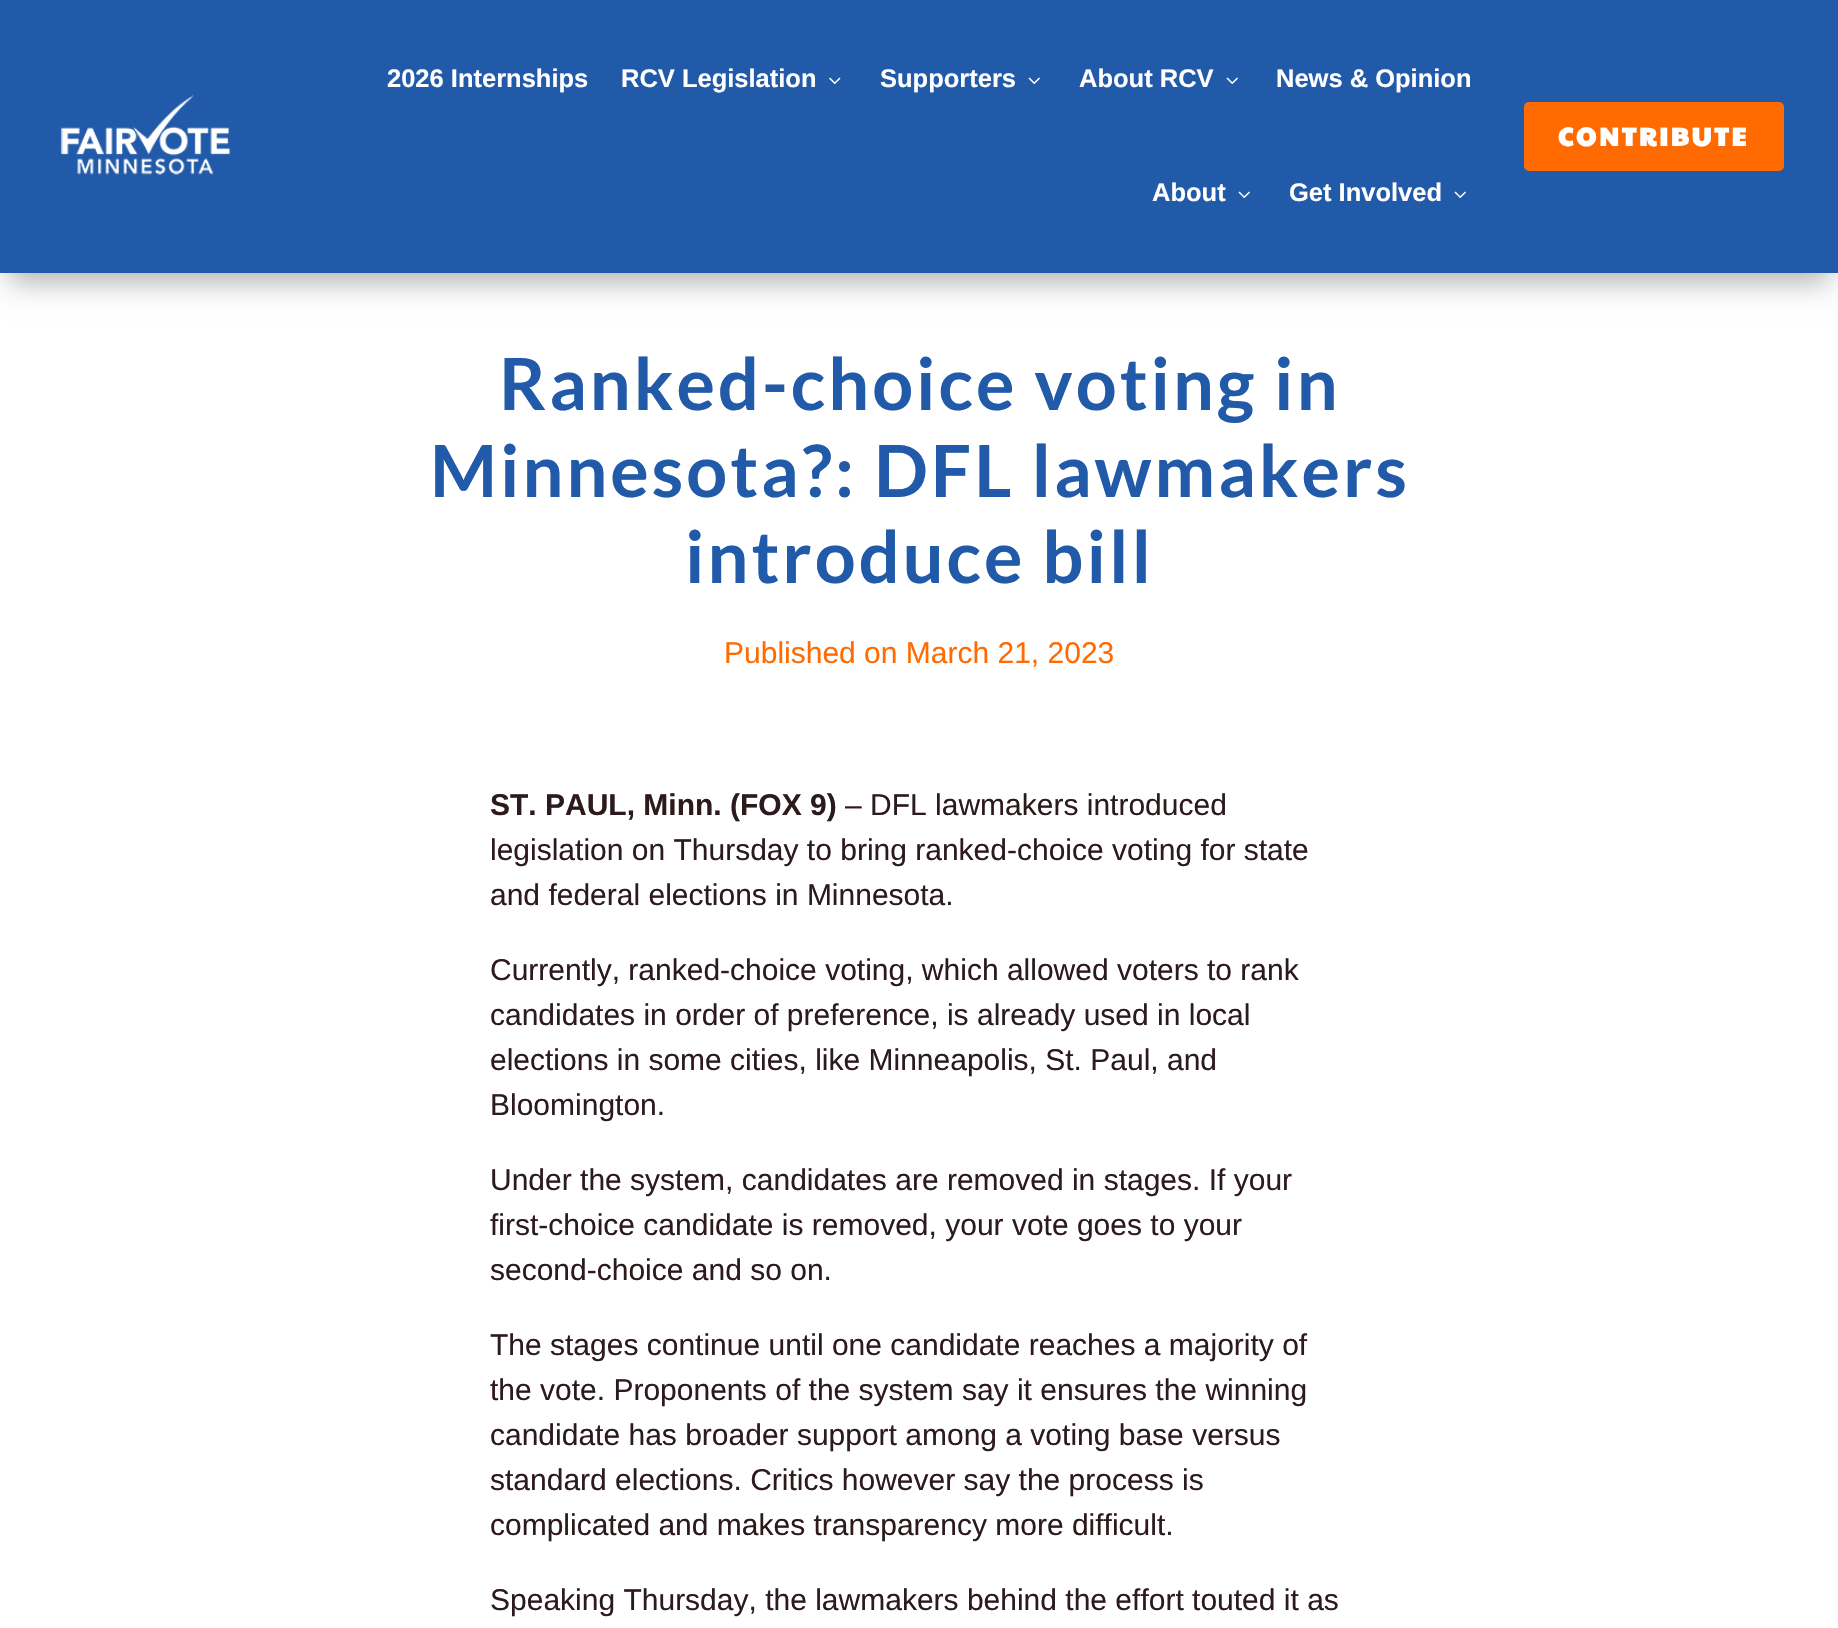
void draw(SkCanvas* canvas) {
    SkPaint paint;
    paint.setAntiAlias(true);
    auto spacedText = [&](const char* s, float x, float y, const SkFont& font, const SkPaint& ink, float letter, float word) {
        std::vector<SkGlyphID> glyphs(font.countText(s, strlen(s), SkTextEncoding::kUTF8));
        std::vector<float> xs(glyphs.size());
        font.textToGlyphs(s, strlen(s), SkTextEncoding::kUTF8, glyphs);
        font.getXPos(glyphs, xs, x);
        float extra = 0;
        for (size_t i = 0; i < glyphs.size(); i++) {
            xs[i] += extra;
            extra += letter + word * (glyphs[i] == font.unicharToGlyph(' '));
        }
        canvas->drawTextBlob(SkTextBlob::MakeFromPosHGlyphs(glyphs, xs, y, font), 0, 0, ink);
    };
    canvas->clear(0xFFFFFFFF);
    paint.setColor(0x4D000000);
    paint.setMaskFilter(SkMaskFilter::MakeBlur(kNormal_SkBlurStyle, 13.5f));
    canvas->drawRect(SkRect::MakeXYWH(9, 27, 1821, 255), paint);
    paint.setMaskFilter(nullptr);
    paint.setColor(0xFF215AA8);
    canvas->drawRect(SkRect::MakeXYWH(0, 0, 1838, 273), paint);
    canvas->drawImageRect(SkImages::DeferredFromEncodedData(SkData::MakeFromFileName("img1.png")), SkRect::MakeXYWH(60, 94, 171, 81), SkSamplingOptions());
    SkFont font1(fontMgr->matchFamilyStyle("Liberation Sans", SkFontStyle::Bold()), 25.5f);
    font1.setSubpixel(true);
    paint.setColor(0xFFFFFFFF);
    canvas->drawString("2026 Internships", 387, 87, font1, paint);
    canvas->drawString("RCV Legislation", 621, 87, font1, paint);
    canvas->drawImageRect(SkImages::DeferredFromEncodedData(SkData::MakeFromFileName("img2.png")), SkRect::MakeXYWH(829, 77, 12, 7), SkSamplingOptions());
    canvas->drawString("Supporters", 880, 87, font1, paint);
    canvas->drawImageRect(SkImages::DeferredFromEncodedData(SkData::MakeFromFileName("img3.png")), SkRect::MakeXYWH(1028, 77, 12, 7), SkSamplingOptions());
    canvas->drawString("About RCV", 1079, 87, font1, paint);
    canvas->drawImageRect(SkImages::DeferredFromEncodedData(SkData::MakeFromFileName("img3.png")), SkRect::MakeXYWH(1226, 77, 12, 7), SkSamplingOptions());
    canvas->drawString("News & Opinion", 1276, 87, font1, paint);
    canvas->drawString("About", 1152, 201, font1, paint);
    canvas->drawImageRect(SkImages::DeferredFromEncodedData(SkData::MakeFromFileName("img3.png")), SkRect::MakeXYWH(1238, 191, 12, 7), SkSamplingOptions());
    canvas->drawString("Get Involved", 1289, 201, font1, paint);
    canvas->drawImageRect(SkImages::DeferredFromEncodedData(SkData::MakeFromFileName("img3.png")), SkRect::MakeXYWH(1454, 191, 12, 7), SkSamplingOptions());
    paint.setColor(0xFFFF6B00);
    canvas->drawRoundRect(SkRect::MakeXYWH(1524, 102, 260, 69), 5, 5, paint);
    SkFont font2(fontMgr->matchFamilyStyle("Paytone One", SkFontStyle::Bold()), 25.5f);
    font2.setSubpixel(true);
    paint.setColor(0xFFFFFFFF);
    spacedText("CONTRIBUTE", 1558, 146, font2, paint, 3, 0);
    SkFont font3(fontMgr->matchFamilyStyle("Lato", SkFontStyle::Bold()), 72);
    font3.setSubpixel(true);
    paint.setColor(0xFF215AA8);
    spacedText("Ranked-choice voting in", 499, 410, font3, paint, 3, 0);
    spacedText("Minnesota?: DFL lawmakers", 430, 497, font3, paint, 3, 0);
    spacedText("introduce bill", 685, 583, font3, paint, 3, 0);
    SkFont font4(fontMgr->matchFamilyStyle("Liberation Sans", SkFontStyle::Normal()), 30);
    font4.setSubpixel(true);
    paint.setColor(0xFFFF6B00);
    canvas->drawString("Published on March 21, 2023", 724, 663, font4, paint);
    SkFont font5(fontMgr->matchFamilyStyle("Liberation Sans", SkFontStyle::Bold()), 30);
    font5.setSubpixel(true);
    paint.setColor(0xFF2C1A1D);
    canvas->drawString("ST. PAUL, Minn. (FOX 9)", 490, 815, font5, paint);
    canvas->drawString("– DFL lawmakers introduced", 845, 815, font4, paint);
    canvas->drawString("legislation on Thursday to bring ranked-choice voting for state", 490, 860, font4, paint);
    canvas->drawString("and federal elections in Minnesota.", 490, 905, font4, paint);
    canvas->drawString("Currently, ranked-choice voting, which allowed voters to rank", 490, 980, font4, paint);
    canvas->drawString("candidates in order of preference, is already used in local", 490, 1025, font4, paint);
    canvas->drawString("elections in some cities, like Minneapolis, St. Paul, and", 490, 1070, font4, paint);
    canvas->drawString("Bloomington.", 490, 1115, font4, paint);
    canvas->drawString("Under the system, candidates are removed in stages. If your", 490, 1190, font4, paint);
    canvas->drawString("first-choice candidate is removed, your vote goes to your", 490, 1235, font4, paint);
    canvas->drawString("second-choice and so on.", 490, 1280, font4, paint);
    canvas->drawString("The stages continue until one candidate reaches a majority of", 490, 1355, font4, paint);
    canvas->drawString("the vote. Proponents of the system say it ensures the winning", 490, 1400, font4, paint);
    canvas->drawString("candidate has broader support among a voting base versus", 490, 1445, font4, paint);
    canvas->drawString("standard elections. Critics however say the process is", 490, 1490, font4, paint);
    canvas->drawString("complicated and makes transparency more difficult.", 490, 1535, font4, paint);
    canvas->drawString("Speaking Thursday, the lawmakers behind the effort touted it as", 490, 1610, font4, paint);
}
